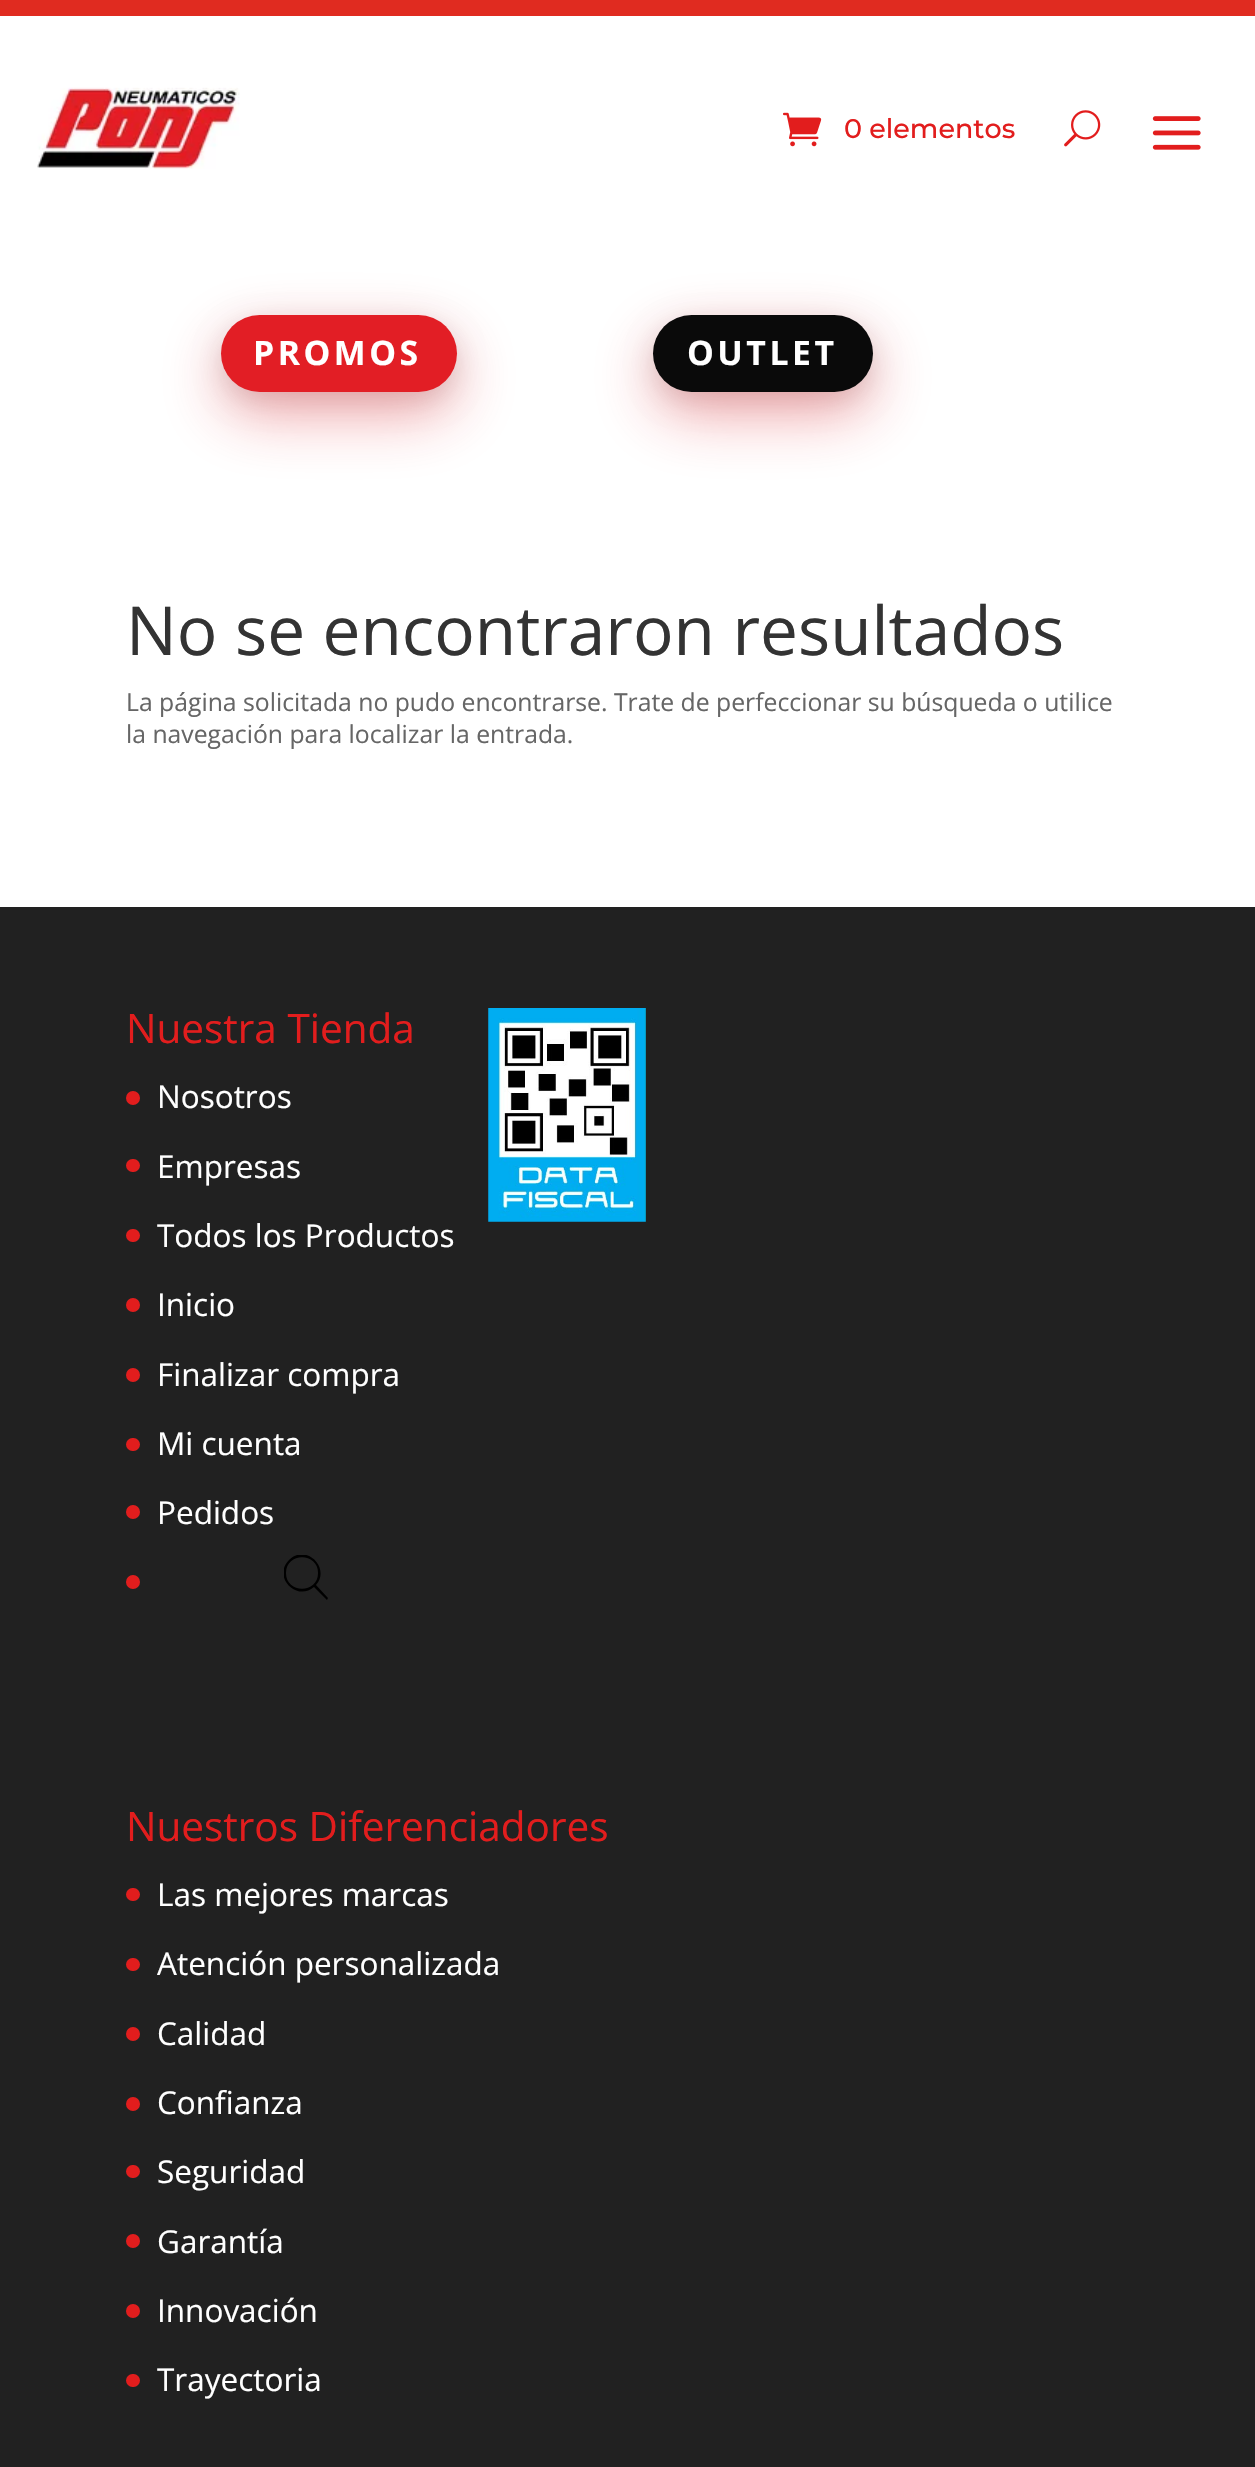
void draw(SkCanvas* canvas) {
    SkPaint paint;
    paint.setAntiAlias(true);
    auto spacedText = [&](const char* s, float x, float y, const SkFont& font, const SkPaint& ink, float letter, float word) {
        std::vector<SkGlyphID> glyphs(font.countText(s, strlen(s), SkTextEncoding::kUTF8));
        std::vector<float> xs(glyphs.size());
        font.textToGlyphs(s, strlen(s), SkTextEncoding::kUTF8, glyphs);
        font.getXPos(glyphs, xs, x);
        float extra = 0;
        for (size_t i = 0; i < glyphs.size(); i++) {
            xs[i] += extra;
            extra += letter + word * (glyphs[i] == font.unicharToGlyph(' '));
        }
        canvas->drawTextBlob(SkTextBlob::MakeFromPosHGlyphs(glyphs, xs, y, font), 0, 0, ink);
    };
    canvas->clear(0xFFFFFFFF);
    paint.setColor(0xFFE02B20);
    canvas->drawRect(SkRect::MakeXYWH(0, 0, 1255, 16), paint);
    canvas->drawImageRect(SkImages::DeferredFromEncodedData(SkData::MakeFromFileName("img1.png")), SkRect::MakeXYWH(37, 87, 203, 82), SkSamplingOptions());
    canvas->drawImageRect(SkImages::DeferredFromEncodedData(SkData::MakeFromFileName("img2.png")), SkRect::MakeXYWH(783, 112, 39, 35), SkSamplingOptions());
    SkFont font1(fontMgr->matchFamilyStyle("Montserrat", SkFontStyle(500, SkFontStyle::kNormal_Width, SkFontStyle::kUpright_Slant)), 27);
    font1.setSubpixel(true);
    paint.setColor(0xFFE21D1D);
    canvas->drawString("0 elementos", 844, 138, font1, paint);
    canvas->drawImageRect(SkImages::DeferredFromEncodedData(SkData::MakeFromFileName("img3.png")), SkRect::MakeXYWH(1064, 110, 37, 37), SkSamplingOptions());
    canvas->drawImageRect(SkImages::DeferredFromEncodedData(SkData::MakeFromFileName("img4.png")), SkRect::MakeXYWH(1152, 116, 49, 34), SkSamplingOptions());
    paint.setColor(0x21000000);
    paint.setMaskFilter(SkMaskFilter::MakeBlur(kNormal_SkBlurStyle, 13.5f));
    canvas->drawRoundRect(SkRect::MakeXYWH(221, 324, 236, 77), 38.5f, 38.5f, paint);
    paint.setMaskFilter(nullptr);
    paint.setColor(0x61E21E25);
    paint.setMaskFilter(SkMaskFilter::MakeBlur(kNormal_SkBlurStyle, 31.5f));
    canvas->drawRoundRect(SkRect::MakeXYWH(221, 338, 236, 76), 38, 38, paint);
    paint.setMaskFilter(nullptr);
    paint.setColor(0xFFE21E25);
    canvas->drawRoundRect(SkRect::MakeXYWH(221, 315, 236, 77), 38.5f, 38.5f, paint);
    SkFont font2(fontMgr->matchFamilyStyle("Open Sans", SkFontStyle::Bold()), 33.75f);
    font2.setSubpixel(true);
    paint.setColor(0xFFFFFFFF);
    spacedText("PROMOS", 253, 365, font2, paint, 3.5f, 0);
    paint.setColor(0x21000000);
    paint.setMaskFilter(SkMaskFilter::MakeBlur(kNormal_SkBlurStyle, 13.5f));
    canvas->drawRoundRect(SkRect::MakeXYWH(653, 324, 220, 77), 38.5f, 38.5f, paint);
    paint.setMaskFilter(nullptr);
    paint.setColor(0x61E21E25);
    paint.setMaskFilter(SkMaskFilter::MakeBlur(kNormal_SkBlurStyle, 31.5f));
    canvas->drawRoundRect(SkRect::MakeXYWH(653, 338, 220, 76), 38, 38, paint);
    paint.setMaskFilter(nullptr);
    paint.setColor(0xFF0A0A0A);
    canvas->drawRoundRect(SkRect::MakeXYWH(653, 315, 220, 77), 38.5f, 38.5f, paint);
    paint.setColor(0xFFFFFFFF);
    spacedText("OUTLET", 687, 365, font2, paint, 3.5f, 0);
    SkFont font3(fontMgr->matchFamilyStyle("Open Sans", SkFontStyle::Normal()), 67.5f);
    font3.setSubpixel(true);
    paint.setColor(0xFF333333);
    canvas->drawString("No se encontraron resultados", 126, 655, font3, paint);
    SkFont font4(fontMgr->matchFamilyStyle("Open Sans", SkFontStyle::Normal()), 24.75f);
    font4.setSubpixel(true);
    paint.setColor(0xFF666666);
    canvas->drawString("La página solicitada no pudo encontrarse. Trate de perfeccionar su búsqueda o utilice", 126, 711, font4, paint);
    canvas->drawString("la navegación para localizar la entrada.", 126, 743, font4, paint);
    paint.setColor(0xFF212121);
    canvas->drawRect(SkRect::MakeXYWH(0, 907, 1255, 1560), paint);
    SkFont font5(fontMgr->matchFamilyStyle("Open Sans", SkFontStyle::Normal()), 40.5f);
    font5.setSubpixel(true);
    paint.setColor(0xFFE21D1D);
    canvas->drawString("Nuestra Tienda", 126, 1043, font5, paint);
    canvas->drawCircle(133, 1098, 7, paint);
    SkFont font6(fontMgr->matchFamilyStyle("Open Sans", SkFontStyle::Normal()), 31.5f);
    font6.setSubpixel(true);
    paint.setColor(0xFFFFFFFF);
    canvas->drawString("Nosotros", 157, 1108, font6, paint);
    paint.setColor(0xFFE21D1D);
    canvas->drawRoundRect(SkRect::MakeXYWH(126, 1159, 14, 13), 6.5f, 6.5f, paint);
    paint.setColor(0xFFFFFFFF);
    canvas->drawString("Empresas", 157, 1178, font6, paint);
    paint.setColor(0xFFE21D1D);
    canvas->drawRoundRect(SkRect::MakeXYWH(126, 1229, 14, 13), 6.5f, 6.5f, paint);
    paint.setColor(0xFFFFFFFF);
    canvas->drawString("Todos los Productos", 157, 1247, font6, paint);
    paint.setColor(0xFFE21D1D);
    canvas->drawCircle(133, 1305, 7, paint);
    paint.setColor(0xFFFFFFFF);
    canvas->drawString("Inicio", 157, 1316, font6, paint);
    paint.setColor(0xFFE21D1D);
    canvas->drawCircle(133, 1375, 7, paint);
    paint.setColor(0xFFFFFFFF);
    canvas->drawString("Finalizar compra", 157, 1386, font6, paint);
    paint.setColor(0xFFE21D1D);
    canvas->drawRoundRect(SkRect::MakeXYWH(126, 1438, 14, 13), 6.5f, 6.5f, paint);
    paint.setColor(0xFFFFFFFF);
    canvas->drawString("Mi cuenta", 157, 1455, font6, paint);
    paint.setColor(0xFFE21D1D);
    canvas->drawCircle(133, 1512, 7, paint);
    paint.setColor(0xFFFFFFFF);
    canvas->drawString("Pedidos", 157, 1524, font6, paint);
    paint.setColor(0xFFE21D1D);
    canvas->drawCircle(133, 1582, 7, paint);
    canvas->save();
    canvas->clipRect(SkRect::MakeXYWH(284, 1555, 45, 45));
    paint.setColor(0xFF000000);
    canvas->drawPath(SkPathBuilder().moveTo(328, 1598).lineTo(316, 1585).cubicTo(331, 1568, 306, 1543, 289, 1560).cubicTo(272, 1577, 297, 1602, 314, 1587).lineTo(327, 1600).close().moveTo(286, 1573).cubicTo(286, 1552, 318, 1552, 318, 1573).cubicTo(318, 1594, 286, 1594, 286, 1573).close().detach(), paint);
    canvas->restore();
    canvas->drawImageRect(SkImages::DeferredFromEncodedData(SkData::MakeFromFileName("img5.png")), SkRect::MakeXYWH(488, 1008, 158, 214), SkSamplingOptions());
    paint.setColor(0xFFE21D1D);
    canvas->drawString("Nuestros Diferenciadores", 126, 1841, font5, paint);
    canvas->drawRoundRect(SkRect::MakeXYWH(126, 1888, 14, 13), 6.5f, 6.5f, paint);
    paint.setColor(0xFFFFFFFF);
    canvas->drawString("Las mejores marcas", 157, 1906, font6, paint);
    paint.setColor(0xFFE21D1D);
    canvas->drawRoundRect(SkRect::MakeXYWH(126, 1958, 14, 13), 6.5f, 6.5f, paint);
    paint.setColor(0xFFFFFFFF);
    canvas->drawString("Atención personalizada", 157, 1975, font6, paint);
    paint.setColor(0xFFE21D1D);
    canvas->drawCircle(133, 2034, 7, paint);
    paint.setColor(0xFFFFFFFF);
    canvas->drawString("Calidad", 157, 2045, font6, paint);
    paint.setColor(0xFFE21D1D);
    canvas->drawCircle(133, 2104, 7, paint);
    paint.setColor(0xFFFFFFFF);
    canvas->drawString("Confianza", 157, 2114, font6, paint);
    paint.setColor(0xFFE21D1D);
    canvas->drawRoundRect(SkRect::MakeXYWH(126, 2165, 14, 13), 6.5f, 6.5f, paint);
    paint.setColor(0xFFFFFFFF);
    canvas->drawString("Seguridad", 157, 2183, font6, paint);
    paint.setColor(0xFFE21D1D);
    canvas->drawCircle(133, 2241, 7, paint);
    paint.setColor(0xFFFFFFFF);
    canvas->drawString("Garantía", 157, 2253, font6, paint);
    paint.setColor(0xFFE21D1D);
    canvas->drawCircle(133, 2311, 7, paint);
    paint.setColor(0xFFFFFFFF);
    canvas->drawString("Innovación", 157, 2322, font6, paint);
    paint.setColor(0xFFE21D1D);
    canvas->drawRoundRect(SkRect::MakeXYWH(126, 2374, 14, 13), 6.5f, 6.5f, paint);
    paint.setColor(0xFFFFFFFF);
    canvas->drawString("Trayectoria", 157, 2391, font6, paint);
}
